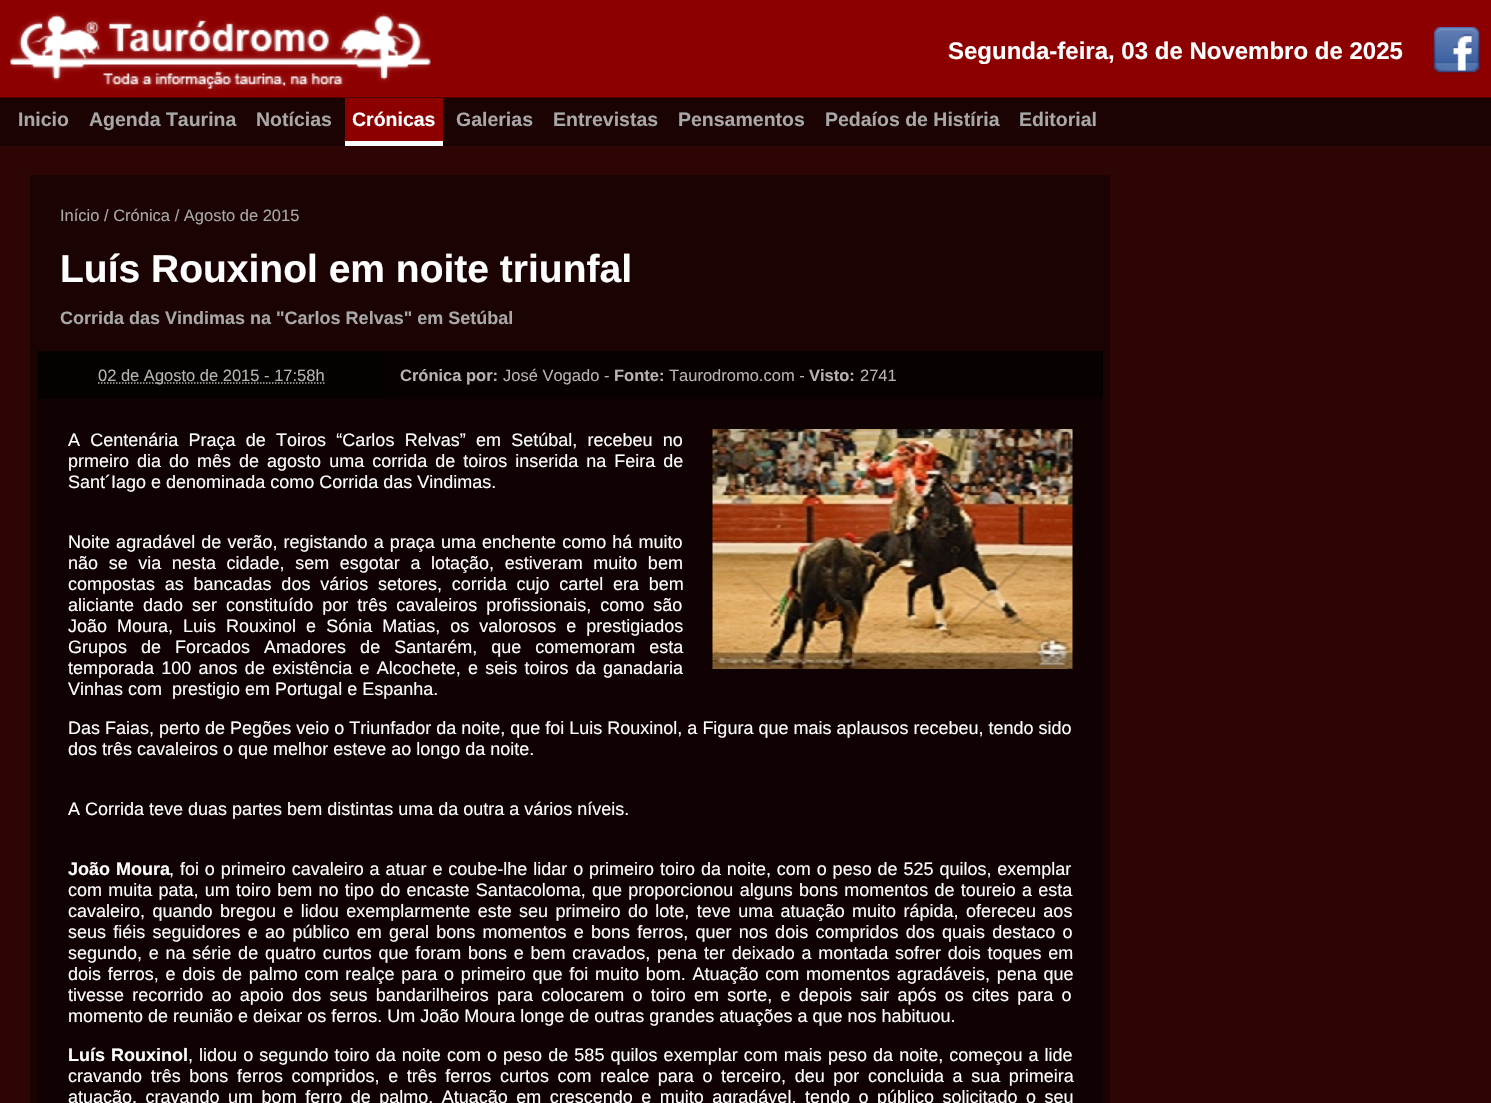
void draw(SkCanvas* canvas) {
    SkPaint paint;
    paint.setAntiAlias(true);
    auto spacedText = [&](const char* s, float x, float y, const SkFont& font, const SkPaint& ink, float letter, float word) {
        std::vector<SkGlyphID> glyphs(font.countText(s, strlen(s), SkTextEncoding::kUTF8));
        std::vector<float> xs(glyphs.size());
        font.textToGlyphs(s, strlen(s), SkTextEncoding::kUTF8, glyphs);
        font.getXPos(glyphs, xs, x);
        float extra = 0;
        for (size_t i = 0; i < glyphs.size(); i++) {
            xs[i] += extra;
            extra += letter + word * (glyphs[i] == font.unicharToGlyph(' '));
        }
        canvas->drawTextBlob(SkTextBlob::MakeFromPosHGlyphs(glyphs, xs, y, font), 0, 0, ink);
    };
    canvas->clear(0xFF2D0505);
    paint.setColor(0xFF1B0303);
    canvas->drawRect(SkRect::MakeXYWH(0, 98, 1491, 48), paint);
    paint.setColor(0xFF8D0000);
    canvas->drawRect(SkRect::MakeXYWH(0, 0, 1491, 97), paint);
    paint.setColor(0xFF550000);
    canvas->drawRect(SkRect::MakeXYWH(0, 97, 1491, 1), paint);
    canvas->drawImageRect(SkImages::DeferredFromEncodedData(SkData::MakeFromFileName("img1.png")), SkRect::MakeXYWH(10, 12, 421, 78), SkSamplingOptions());
    SkFont font1(fontMgr->matchFamilyStyle("Liberation Sans", SkFontStyle::Bold()), 24);
    font1.setSubpixel(true);
    paint.setColor(0xFFFFFFFF);
    canvas->drawString("Segunda-feira, 03 de Novembro de 2025", 948, 59, font1, paint);
    canvas->drawImageRect(SkImages::DeferredFromEncodedData(SkData::MakeFromFileName("img2.png")), SkRect::MakeXYWH(1433, 27, 47, 48), SkSamplingOptions());
    SkFont font2(fontMgr->matchFamilyStyle("Liberation Sans", SkFontStyle::Bold()), 19.5f);
    font2.setSubpixel(true);
    paint.setColor(0xFFA8A8A8);
    canvas->drawString("Inicio", 18, 126, font2, paint);
    canvas->drawString("Agenda Taurina", 89, 126, font2, paint);
    canvas->drawString("Notícias", 256, 126, font2, paint);
    paint.setColor(0xFF8D0000);
    canvas->drawRect(SkRect::MakeXYWH(345, 98, 98, 43), paint);
    paint.setColor(0xFFFFFFFF);
    canvas->drawRect(SkRect::MakeXYWH(345, 141, 98, 5), paint);
    canvas->drawString("Crónicas", 352, 126, font2, paint);
    paint.setColor(0xFFA8A8A8);
    canvas->drawString("Galerias", 456, 126, font2, paint);
    canvas->drawString("Entrevistas", 553, 126, font2, paint);
    canvas->drawString("Pensamentos", 678, 126, font2, paint);
    canvas->drawString("Pedaíos de Histíria", 825, 126, font2, paint);
    canvas->drawString("Editorial", 1019, 126, font2, paint);
    paint.setColor(0xFF1B0303);
    canvas->drawRect(SkRect::MakeXYWH(30, 175, 1080, 928), paint);
    SkFont font3(fontMgr->matchFamilyStyle("Liberation Sans", SkFontStyle::Normal()), 16.5f);
    font3.setSubpixel(true);
    paint.setColor(0xFFA8A8A8);
    canvas->drawString("Início / Crónica / Agosto de 2015", 60, 221, font3, paint);
    SkFont font4(fontMgr->matchFamilyStyle("Liberation Sans", SkFontStyle::Bold()), 39);
    font4.setSubpixel(true);
    paint.setColor(0xFFFFFFFF);
    canvas->drawString("Luís Rouxinol em noite triunfal", 60, 282, font4, paint);
    SkFont font5(fontMgr->matchFamilyStyle("Liberation Sans", SkFontStyle::Bold()), 18);
    font5.setSubpixel(true);
    paint.setColor(0xFFA8A8A8);
    canvas->drawString("Corrida das Vindimas na \"Carlos Relvas\" em Setúbal", 60, 324, font5, paint);
    paint.setColor(0xFF050101);
    canvas->drawRect(SkRect::MakeXYWH(37, 351, 349, 48), paint);
    paint.setStyle(SkPaint::kStroke_Style);
    paint.setStrokeWidth(1.5f);
    paint.setColor(0xFFB5B4B2);
    paint.setPathEffect(SkDashPathEffect::Make({{1.5f, 1.5f}}, 0));
    canvas->drawPath(SkPathBuilder().moveTo(98, 383).lineTo(324.5f, 383).detach(), paint);
    paint.setPathEffect(nullptr);
    paint.setStyle(SkPaint::kFill_Style);
    canvas->drawString("02 de Agosto de 2015 - 17:58h", 98, 381, font3, paint);
    paint.setColor(0xFF080101);
    canvas->drawRect(SkRect::MakeXYWH(386, 351, 717, 48), paint);
    SkFont font6(fontMgr->matchFamilyStyle("Liberation Sans", SkFontStyle::Bold()), 16.5f);
    font6.setSubpixel(true);
    paint.setColor(0xFFB5B4B2);
    canvas->drawString("Crónica por:", 400, 381, font6, paint);
    canvas->drawString("José Vogado -", 503, 381, font3, paint);
    canvas->drawString("Fonte:", 614, 381, font6, paint);
    canvas->drawString("Taurodromo.com -", 669, 381, font3, paint);
    canvas->drawString("Visto:", 809, 381, font6, paint);
    canvas->drawString("2741", 860, 381, font3, paint);
    paint.setColor(0xFF100202);
    canvas->drawRect(SkRect::MakeXYWH(37, 399, 1066, 704), paint);
    SkFont font7(fontMgr->matchFamilyStyle("Liberation Sans", SkFontStyle::Normal()), 18);
    font7.setSubpixel(true);
    paint.setColor(0xFFFFFFFF);
    spacedText("A Centenária Praça de Toiros “Carlos Relvas” em Setúbal, recebeu no", 68, 446, font7, paint, 0, 5.25f);
    spacedText("prmeiro dia do mês de agosto uma corrida de toiros inserida na Feira de", 68, 467, font7, paint, 0, 3);
    canvas->drawString("Sant´Iago e denominada como Corrida das Vindimas.", 68, 488, font7, paint);
    canvas->drawImageRect(SkImages::DeferredFromEncodedData(SkData::MakeFromFileName("img3.png")), SkRect::MakeXYWH(712, 429, 361, 240), SkSamplingOptions());
    spacedText("Noite agradável de verão, registando a praça uma enchente como há muito", 68, 548, font7, paint, 0, 1.1f);
    spacedText("não se via nesta cidade, sem esgotar a lotação, estiveram muito bem", 68, 569, font7, paint, 0, 5.6f);
    spacedText("compostas as bancadas dos vários setores, corrida cujo cartel era bem", 68, 590, font7, paint, 0, 4.75f);
    spacedText("aliciante dado ser constituído por três cavaleiros profissionais, como são", 68, 611, font7, paint, 0, 4);
    spacedText("João Moura, Luis Rouxinol e Sónia Matias, os valorosos e prestigiados", 68, 632, font7, paint, 0, 5);
    spacedText("Grupos de Forcados Amadores de Santarém, que comemoram esta", 68, 653, font7, paint, 0, 9);
    spacedText("temporada 100 anos de existência e Alcochete, e seis toiros da ganadaria", 68, 674, font7, paint, 0, 2.25f);
    canvas->drawString("Vinhas com  prestigio em Portugal e Espanha.", 68, 695, font7, paint);
    canvas->drawString("Das Faias, perto de Pegões veio o Triunfador da noite, que foi Luis Rouxinol, a Figura que mais aplausos recebeu, tendo sido", 68, 734, font7, paint);
    canvas->drawString("dos três cavaleiros o que melhor esteve ao longo da noite.", 68, 755, font7, paint);
    canvas->drawString("A Corrida teve duas partes bem distintas uma da outra a vários níveis.", 68, 815, font7, paint);
    spacedText("João Moura", 68, 875, font5, paint, 0, 1);
    spacedText(", foi o primeiro cavaleiro a atuar e coube-lhe lidar o primeiro toiro da noite, com o peso de 525 quilos, exemplar", 169, 875, font7, paint, 0, 0.9f);
    spacedText("com muita pata, um toiro bem no tipo do encaste Santacoloma, que proporcionou alguns bons momentos de toureio a esta", 68, 896, font7, paint, 0, 1.25f);
    spacedText("cavaleiro, quando bregou e lidou exemplarmente este seu primeiro do lote, teve uma atuação muito rápida, ofereceu aos", 68, 917, font7, paint, 0, 2.4f);
    spacedText("seus fiéis seguidores e ao público em geral bons momentos e bons ferros, quer nos dois compridos dos quais destaco o", 68, 938, font7, paint, 0, 2.25f);
    spacedText("segundo, e na série de quatro curtos que foram bons e bem cravados, pena ter deixado a montada sofrer dois toques em", 68, 959, font7, paint, 0, 1.75f);
    spacedText("dois ferros, e dois de palmo com realçe para o primeiro que foi muito bom. Atuação com momentos agradáveis, pena que", 68, 980, font7, paint, 0, 1.75f);
    spacedText("tivesse recorrido ao apoio dos seus bandarilheiros para colocarem o toiro em sorte, e depois sair após os cites para o", 68, 1001, font7, paint, 0, 3.25f);
    canvas->drawString("momento de reunião e deixar os ferros. Um João Moura longe de outras grandes atuações a que nos habituou.", 68, 1022, font7, paint);
    spacedText("Luís Rouxinol", 68, 1061, font5, paint, 0, 1);
    spacedText(", lidou o segundo toiro da noite com o peso de 585 quilos exemplar com mais peso da noite, começou a lide", 188, 1061, font7, paint, 0, 1.1f);
    spacedText("cravando três bons ferros compridos, e três ferros curtos com realce para o terceiro, deu por concluida a sua primeira", 68, 1082, font7, paint, 0, 3.6f);
    spacedText("atuação, cravando um bom ferro de palmo. Atuação em crescendo e muito agradável, tendo o público solicitado o seu", 68, 1103, font7, paint, 0, 3.5f);
}
